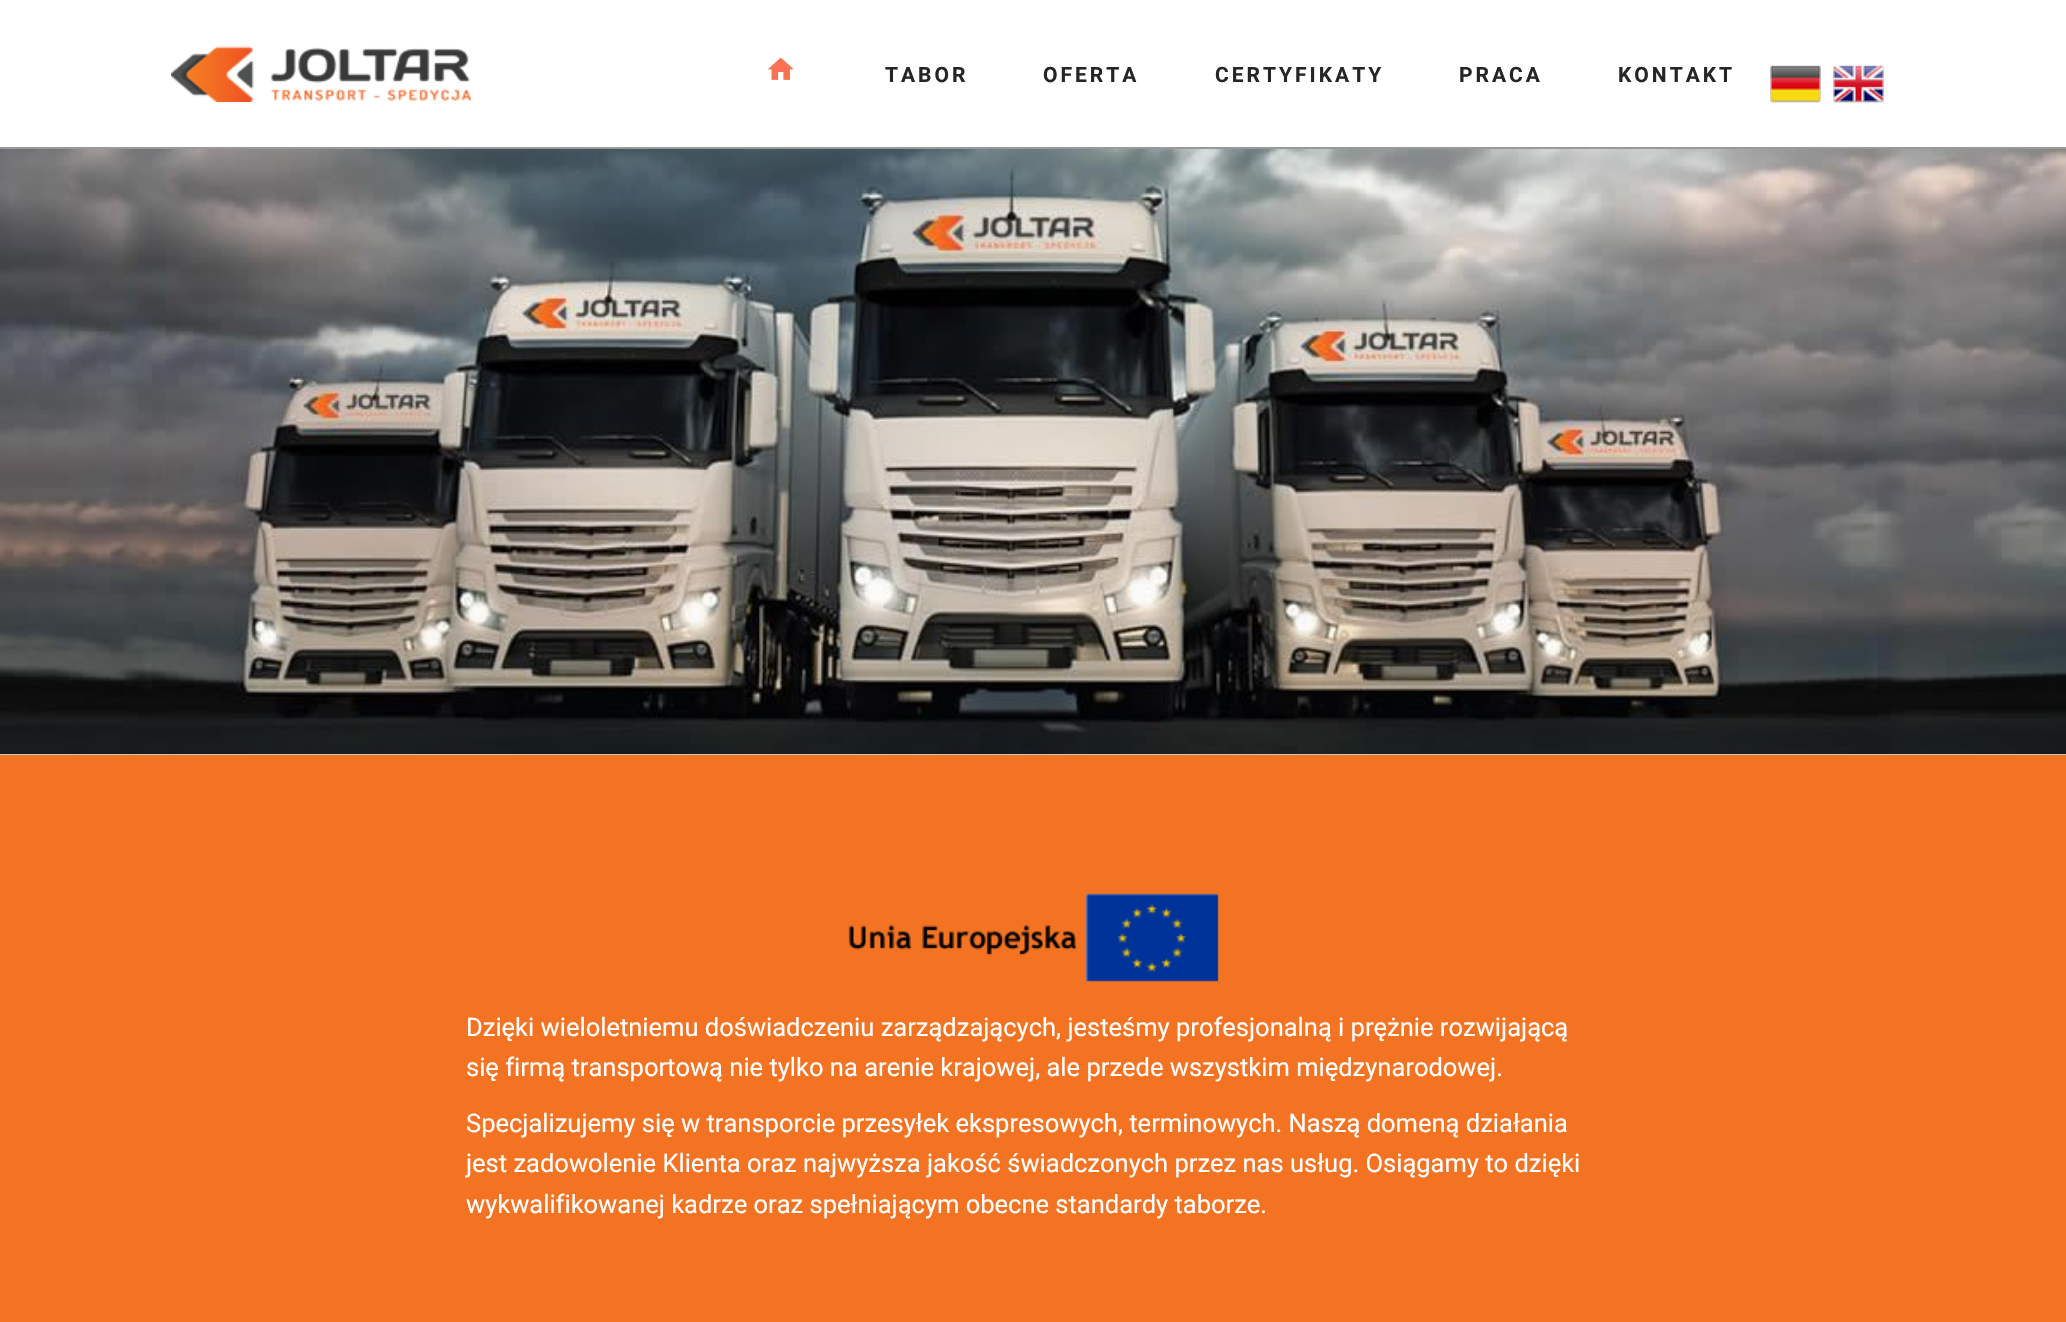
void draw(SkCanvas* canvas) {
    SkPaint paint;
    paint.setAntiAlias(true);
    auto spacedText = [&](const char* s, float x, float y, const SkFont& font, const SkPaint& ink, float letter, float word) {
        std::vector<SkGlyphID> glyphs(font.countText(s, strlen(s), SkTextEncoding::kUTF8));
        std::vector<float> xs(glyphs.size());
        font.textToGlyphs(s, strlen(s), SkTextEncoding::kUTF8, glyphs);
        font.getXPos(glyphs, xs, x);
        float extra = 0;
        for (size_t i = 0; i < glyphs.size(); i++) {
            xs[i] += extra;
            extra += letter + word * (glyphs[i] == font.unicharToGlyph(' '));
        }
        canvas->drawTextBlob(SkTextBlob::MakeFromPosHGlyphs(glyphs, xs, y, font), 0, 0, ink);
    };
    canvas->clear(0xFFFFFFFF);
    paint.setColor(0xFF999999);
    canvas->drawRect(SkRect::MakeXYWH(0, 147, 2066, 2), paint);
    canvas->drawImageRect(SkImages::DeferredFromEncodedData(SkData::MakeFromFileName("img1.png")), SkRect::MakeXYWH(171, 46, 300, 56), SkSamplingOptions());
    canvas->drawImageRect(SkImages::DeferredFromEncodedData(SkData::MakeFromFileName("img2.png")), SkRect::MakeXYWH(767, 57, 27, 23), SkSamplingOptions());
    SkFont font1(fontMgr->matchFamilyStyle("Roboto", SkFontStyle::Bold()), 21);
    font1.setSubpixel(true);
    paint.setColor(0xFF252525);
    spacedText("TABOR", 885, 82, font1, paint, 3, 0);
    spacedText("OFERTA", 1043, 82, font1, paint, 3, 0);
    spacedText("CERTYFIKATY", 1215, 82, font1, paint, 3, 0);
    spacedText("PRACA", 1459, 82, font1, paint, 3, 0);
    spacedText("KONTAKT", 1618, 82, font1, paint, 3, 0);
    canvas->drawImageRect(SkImages::DeferredFromEncodedData(SkData::MakeFromFileName("img3.png")), SkRect::MakeXYWH(1770, 65, 51, 38), SkSamplingOptions());
    canvas->drawImageRect(SkImages::DeferredFromEncodedData(SkData::MakeFromFileName("img4.png")), SkRect::MakeXYWH(1833, 65, 51, 38), SkSamplingOptions());
    canvas->drawImageRect(SkImages::DeferredFromEncodedData(SkData::MakeFromFileName("img5.png")), SkRect::MakeXYWH(0, 149, 2066, 606), SkSamplingOptions());
    paint.setColor(0xFFF47322);
    canvas->drawRect(SkRect::MakeXYWH(0, 755, 2066, 567), paint);
    canvas->drawImageRect(SkImages::DeferredFromEncodedData(SkData::MakeFromFileName("img6.png")), SkRect::MakeXYWH(848, 893, 371, 89), SkSamplingOptions());
    SkFont font2(fontMgr->matchFamilyStyle("Roboto", SkFontStyle::Normal()), 25.5f);
    font2.setSubpixel(true);
    paint.setColor(0xFFFFFFFF);
    canvas->drawString("Dzięki wieloletniemu doświadczeniu zarządzających, jesteśmy profesjonalną i prężnie rozwijającą", 466, 1036, font2, paint);
    canvas->drawString("się firmą transportową nie tylko na arenie krajowej, ale przede wszystkim międzynarodowej.", 466, 1076, font2, paint);
    canvas->drawString("Specjalizujemy się w transporcie przesyłek ekspresowych, terminowych. Naszą domeną działania", 466, 1132, font2, paint);
    canvas->drawString("jest zadowolenie Klienta oraz najwyższa jakość świadczonych przez nas usług. Osiągamy to dzięki", 466, 1172, font2, paint);
    canvas->drawString("wykwalifikowanej kadrze oraz spełniającym obecne standardy taborze.", 466, 1213, font2, paint);
}
